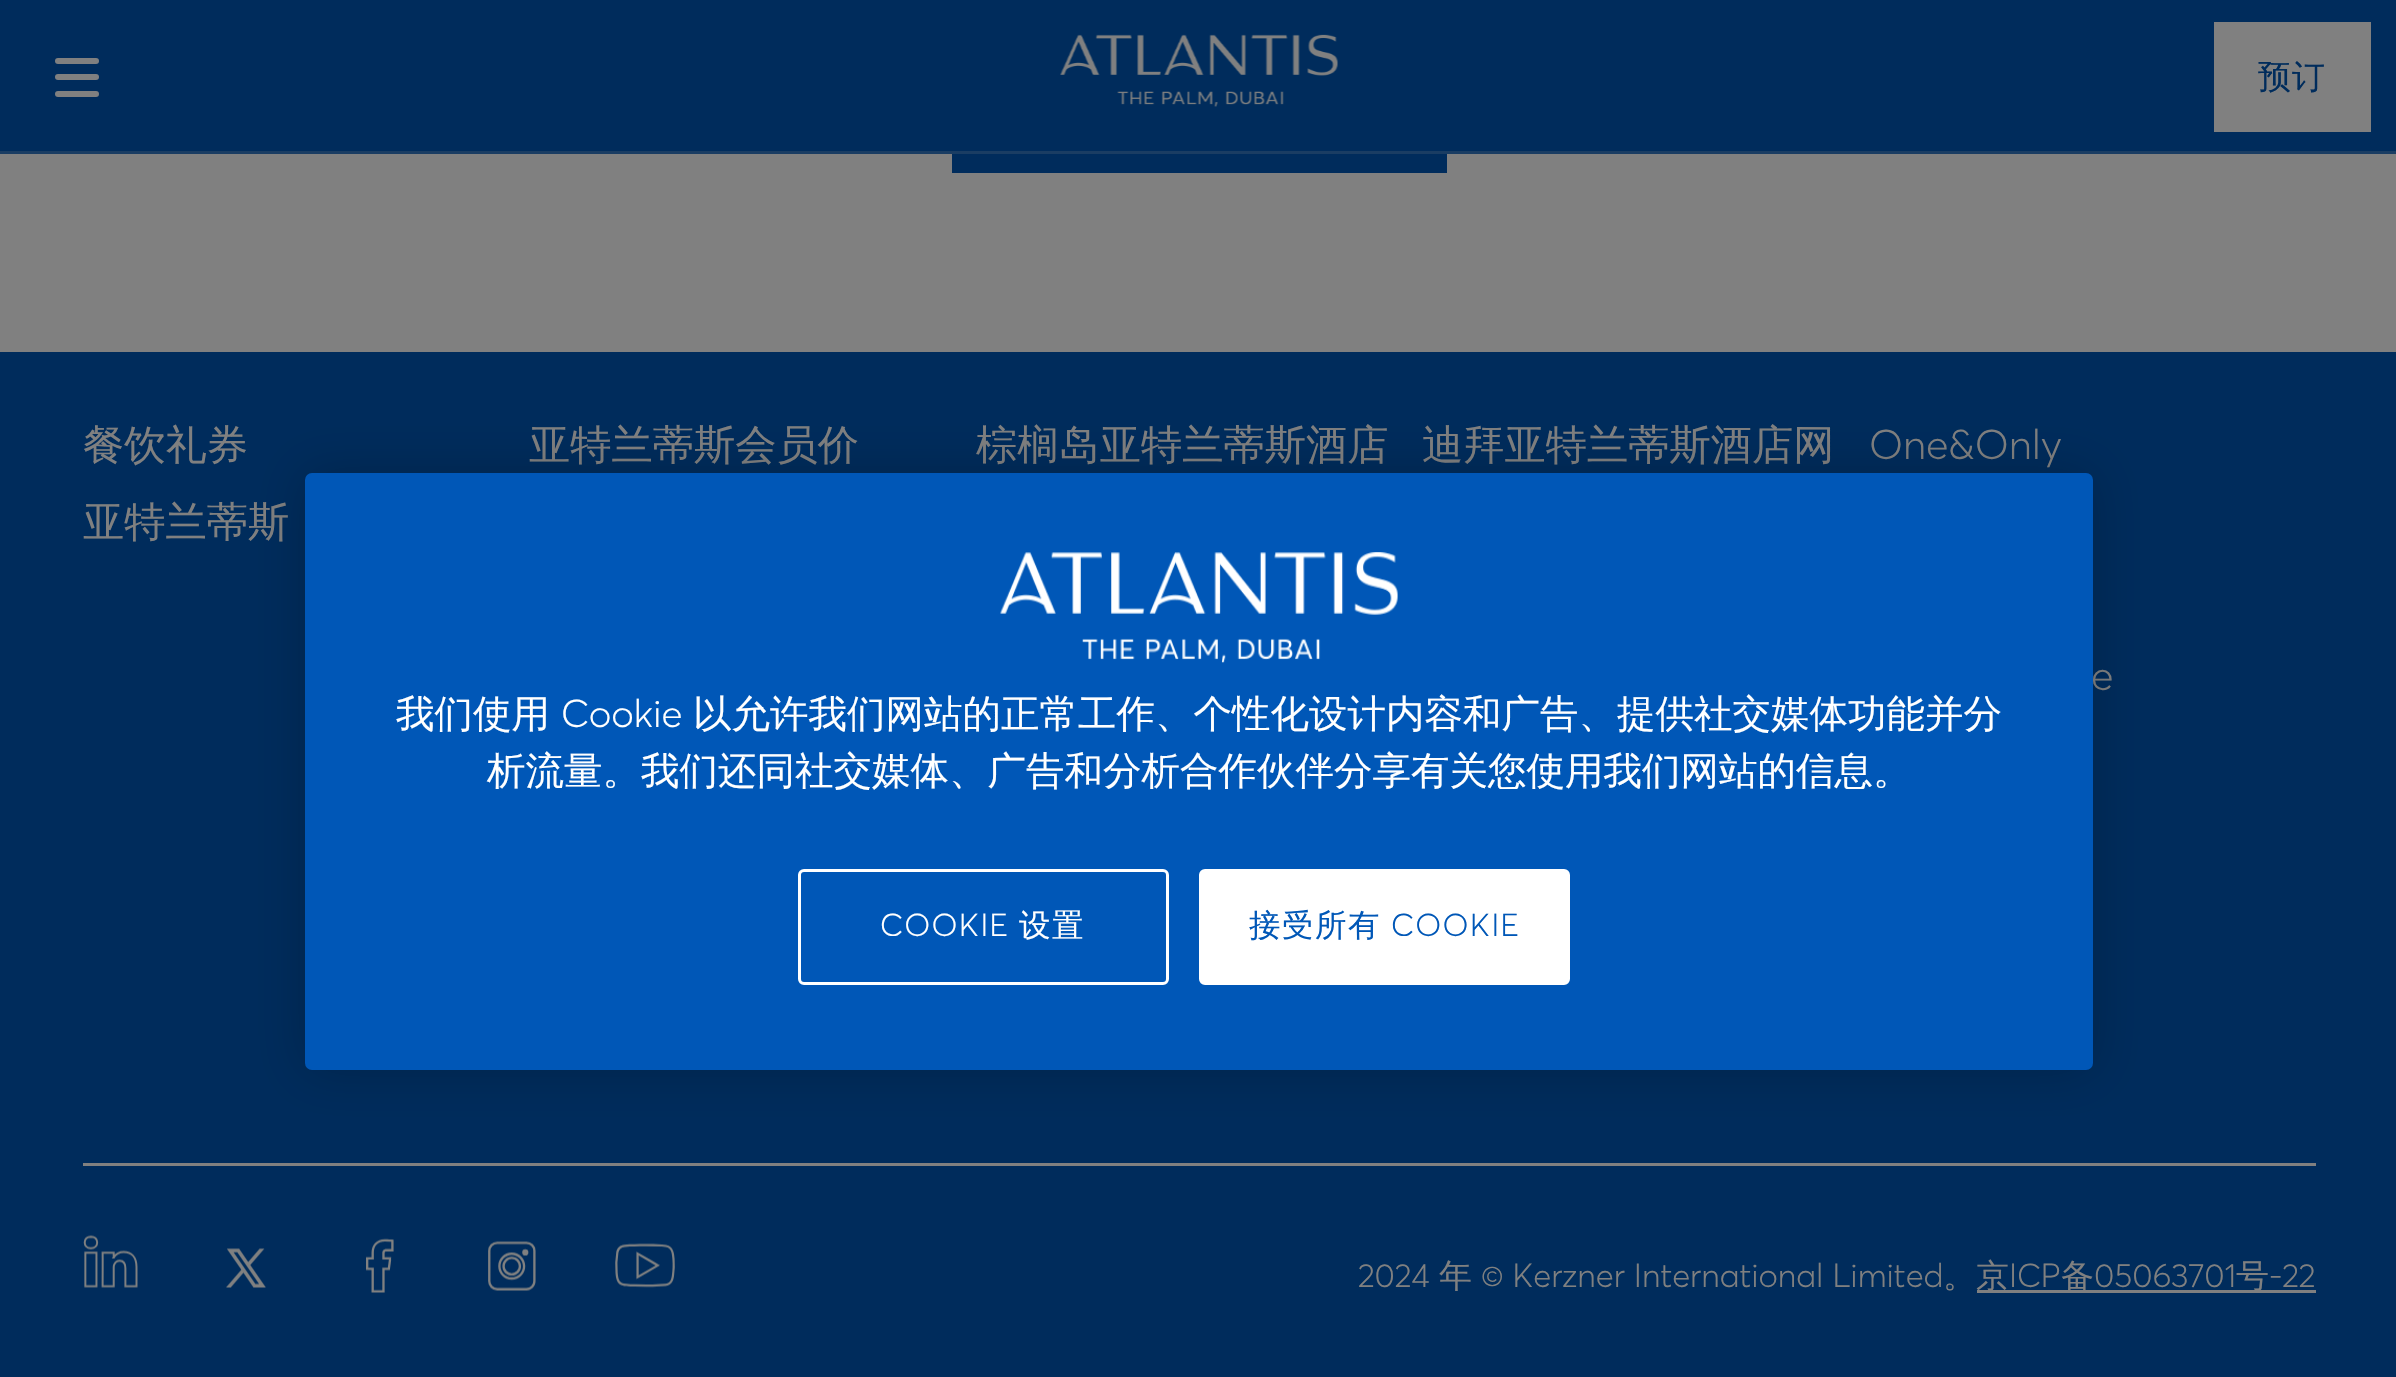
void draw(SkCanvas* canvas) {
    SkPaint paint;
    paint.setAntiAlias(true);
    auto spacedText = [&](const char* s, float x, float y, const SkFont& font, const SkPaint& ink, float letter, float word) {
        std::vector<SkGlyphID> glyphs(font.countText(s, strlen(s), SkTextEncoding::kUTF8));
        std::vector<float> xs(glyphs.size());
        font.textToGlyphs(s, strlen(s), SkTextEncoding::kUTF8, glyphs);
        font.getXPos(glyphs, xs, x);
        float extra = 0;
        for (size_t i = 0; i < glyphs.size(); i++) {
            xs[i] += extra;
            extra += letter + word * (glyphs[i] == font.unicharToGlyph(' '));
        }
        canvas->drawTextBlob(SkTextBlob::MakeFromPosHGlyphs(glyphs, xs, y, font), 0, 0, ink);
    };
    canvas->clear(0xFF002C5C);
    paint.setColor(0xFF808080);
    canvas->drawRect(SkRect::MakeXYWH(0, 154, 2396, 198), paint);
    canvas->drawRoundRect(SkRect::MakeXYWH(55, 58, 44, 6), 3, 3, paint);
    canvas->drawRoundRect(SkRect::MakeXYWH(55, 74, 44, 6), 3, 3, paint);
    canvas->drawRoundRect(SkRect::MakeXYWH(55, 91, 44, 6), 3, 3, paint);
    canvas->drawImageRect(SkImages::DeferredFromEncodedData(SkData::MakeFromFileName("img1.png")), SkRect::MakeXYWH(1060, 34, 278, 73), SkSamplingOptions());
    canvas->drawRect(SkRect::MakeXYWH(2214, 22, 157, 110), paint);
    SkFont font1(fontMgr->matchFamilyStyle("WenQuanYi Zen Hei", SkFontStyle(500, SkFontStyle::kNormal_Width, SkFontStyle::kUpright_Slant)), 33);
    font1.setSubpixel(true);
    paint.setColor(0xFF002C5C);
    spacedText("预订", 2258, 88, font1, paint, 1, 0);
    paint.setColor(0xFF1A3D63);
    canvas->drawRect(SkRect::MakeXYWH(0, 151, 2396, 3), paint);
    paint.setColor(0xFF002C5C);
    canvas->drawRect(SkRect::MakeXYWH(952, 154, 495, 19), paint);
    paint.setColor(0xFF808080);
    canvas->drawRect(SkRect::MakeXYWH(83, 1163, 2233, 3), paint);
    SkFont font2(fontMgr->matchFamilyStyle("WenQuanYi Zen Hei", SkFontStyle(500, SkFontStyle::kNormal_Width, SkFontStyle::kUpright_Slant)), 41.25f);
    font2.setSubpixel(true);
    canvas->drawString("餐饮礼券", 83, 459, font2, paint);
    canvas->drawString("亚特兰蒂斯", 83, 536, font2, paint);
    canvas->drawString("亚特兰蒂斯会员价", 529, 459, font2, paint);
    canvas->drawString("棕榈岛亚特兰蒂斯酒店", 976, 459, font2, paint);
    canvas->drawString("迪拜亚特兰蒂斯酒店网", 1422, 459, font2, paint);
    SkFont font3(fontMgr->matchFamilyStyle("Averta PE", SkFontStyle(300, SkFontStyle::kNormal_Width, SkFontStyle::kUpright_Slant)), 41.25f);
    font3.setSubpixel(true);
    canvas->drawString("One&Only", 1869, 459, font3, paint);
    canvas->drawString("e", 2091, 690, font3, paint);
    canvas->drawImageRect(SkImages::DeferredFromEncodedData(SkData::MakeFromFileName("img2.png")), SkRect::MakeXYWH(83, 1235, 55, 53), SkSamplingOptions());
    canvas->drawImageRect(SkImages::DeferredFromEncodedData(SkData::MakeFromFileName("img3.png")), SkRect::MakeXYWH(226, 1248, 40, 40), SkSamplingOptions());
    canvas->drawImageRect(SkImages::DeferredFromEncodedData(SkData::MakeFromFileName("img4.png")), SkRect::MakeXYWH(366, 1238, 28, 55), SkSamplingOptions());
    canvas->drawImageRect(SkImages::DeferredFromEncodedData(SkData::MakeFromFileName("img5.png")), SkRect::MakeXYWH(488, 1241, 48, 50), SkSamplingOptions());
    canvas->drawImageRect(SkImages::DeferredFromEncodedData(SkData::MakeFromFileName("img6.png")), SkRect::MakeXYWH(615, 1243, 60, 45), SkSamplingOptions());
    SkFont font4(fontMgr->matchFamilyStyle("Averta PE", SkFontStyle(300, SkFontStyle::kNormal_Width, SkFontStyle::kUpright_Slant)), 33);
    font4.setSubpixel(true);
    canvas->drawString("2024", 1358, 1287, font4, paint);
    canvas->drawString("年", 1439, 1287, font1, paint);
    canvas->drawString("© Kerzner International Limited", 1481, 1287, font4, paint);
    canvas->drawString("。", 1943, 1287, font1, paint);
    canvas->drawRect(SkRect::MakeXYWH(1977, 1290, 339, 3), paint);
    canvas->drawString("京", 1976, 1287, font1, paint);
    canvas->drawString("ICP", 2009, 1287, font4, paint);
    canvas->drawString("备", 2061, 1287, font1, paint);
    canvas->drawString("05063701", 2094, 1287, font4, paint);
    canvas->drawString("号", 2236, 1287, font1, paint);
    canvas->drawString("-22", 2269, 1287, font4, paint);
    paint.setColor(0x33000000);
    paint.setMaskFilter(SkMaskFilter::MakeBlur(kNormal_SkBlurStyle, 25));
    canvas->drawRoundRect(SkRect::MakeXYWH(305, 473, 1788, 597), 7, 7, paint);
    paint.setMaskFilter(nullptr);
    paint.setColor(0xFF0057B7);
    canvas->drawRoundRect(SkRect::MakeXYWH(305, 473, 1788, 597), 7, 7, paint);
    canvas->drawImageRect(SkImages::DeferredFromEncodedData(SkData::MakeFromFileName("img7.png")), SkRect::MakeXYWH(1000, 552, 398, 111), SkSamplingOptions());
    SkFont font5(fontMgr->matchFamilyStyle("WenQuanYi Zen Hei", SkFontStyle(500, SkFontStyle::kNormal_Width, SkFontStyle::kUpright_Slant)), 38.5f);
    font5.setSubpixel(true);
    paint.setColor(0xFFFFFFFF);
    canvas->drawString("我们使用", 396, 727, font5, paint);
    SkFont font6(fontMgr->matchFamilyStyle("Averta PE", SkFontStyle(300, SkFontStyle::kNormal_Width, SkFontStyle::kUpright_Slant)), 38.5f);
    font6.setSubpixel(true);
    canvas->drawString("Cookie", 561, 727, font6, paint);
    canvas->drawString("以允许我们网站的正常工作、个性化设计内容和广告、提供社交媒体功能并分", 693, 727, font5, paint);
    canvas->drawString("析流量。我们还同社交媒体、广告和分析合作伙伴分享有关您使用我们网站的信息。", 487, 784, font5, paint);
    paint.setStyle(SkPaint::kStroke_Style);
    paint.setStrokeWidth(3);
    canvas->drawRoundRect(SkRect::MakeXYWH(799.5f, 870.5f, 368, 113), 4.5f, 4.5f, paint);
    SkFont font7(fontMgr->matchFamilyStyle("Averta PE", SkFontStyle(300, SkFontStyle::kNormal_Width, SkFontStyle::kUpright_Slant)), 31.5f);
    font7.setSubpixel(true);
    paint.setStyle(SkPaint::kFill_Style);
    spacedText("COOKIE", 880, 936, font7, paint, 1.5f, 0);
    SkFont font8(fontMgr->matchFamilyStyle("WenQuanYi Zen Hei", SkFontStyle(500, SkFontStyle::kNormal_Width, SkFontStyle::kUpright_Slant)), 31.5f);
    font8.setSubpixel(true);
    spacedText("设置", 1019, 936, font8, paint, 1.5f, 0);
    canvas->drawRoundRect(SkRect::MakeXYWH(1200.5f, 870.5f, 368, 113), 4.5f, 4.5f, paint);
    paint.setStyle(SkPaint::kStroke_Style);
    canvas->drawRoundRect(SkRect::MakeXYWH(1200.5f, 870.5f, 368, 113), 4.5f, 4.5f, paint);
    paint.setStyle(SkPaint::kFill_Style);
    paint.setColor(0xFF0057B7);
    spacedText("接受所有", 1249, 936, font8, paint, 1.5f, 0);
    spacedText("COOKIE", 1391, 936, font7, paint, 1.5f, 0);
}
